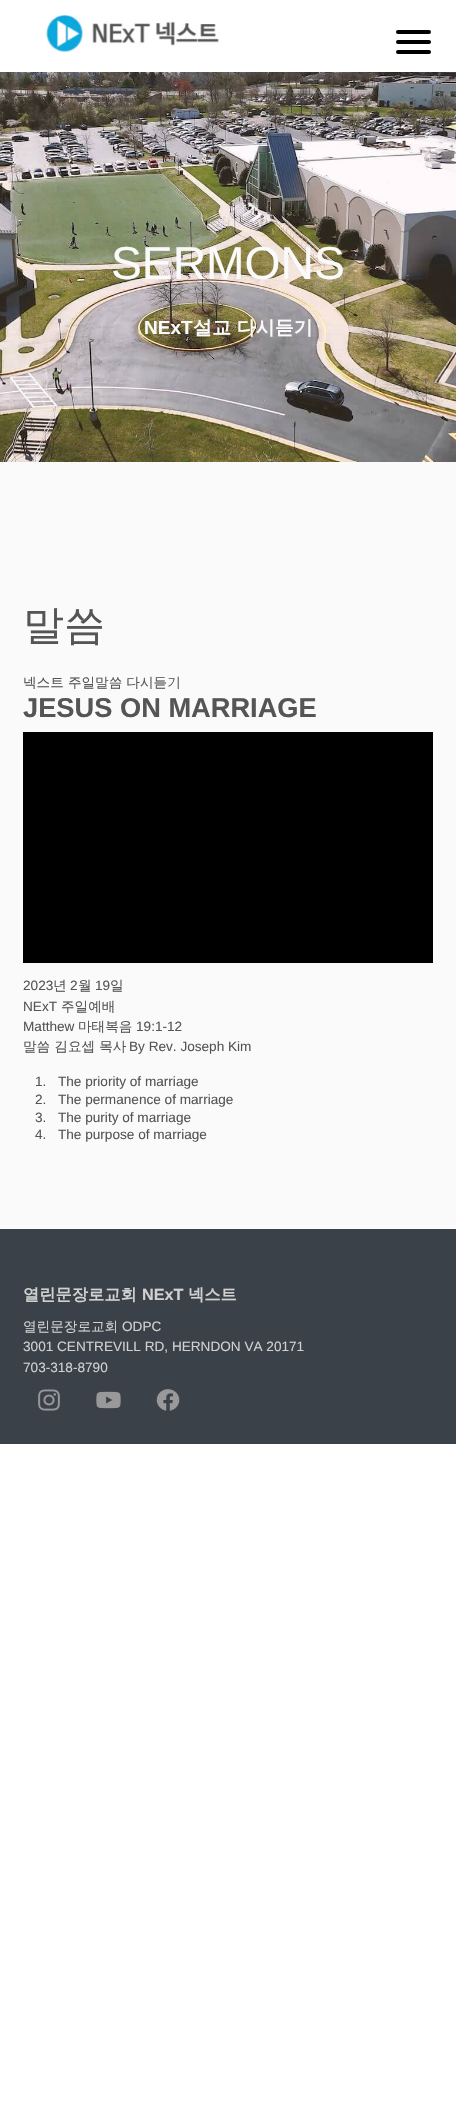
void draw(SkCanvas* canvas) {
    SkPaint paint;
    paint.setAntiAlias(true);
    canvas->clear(0xFFFFFFFF);
    canvas->drawImageRect(SkImages::DeferredFromEncodedData(SkData::MakeFromFileName("img1.png")), SkRect::MakeXYWH(46, 14, 173, 39), SkSamplingOptions());
    paint.setColor(0xFF000000);
    canvas->drawRoundRect(SkRect::MakeXYWH(396, 40, 35, 4), 2, 2, paint);
    canvas->drawRoundRect(SkRect::MakeXYWH(396, 30, 35, 4), 2, 2, paint);
    canvas->drawRoundRect(SkRect::MakeXYWH(396, 50, 35, 4), 2, 2, paint);
    canvas->drawImageRect(SkImages::DeferredFromEncodedData(SkData::MakeFromFileName("img2.png")), SkRect::MakeXYWH(0, 72, 456, 390), SkSamplingOptions());
    SkFont font1(fontMgr->matchFamilyStyle("Liberation Sans", SkFontStyle::Normal()), 46.25f);
    font1.setSubpixel(true);
    paint.setColor(0xFFFAFAFA);
    canvas->drawString("SERMONS", 111, 279, font1, paint);
    SkFont font2(fontMgr->matchFamilyStyle("Liberation Sans", SkFontStyle::Bold()), 19);
    font2.setSubpixel(true);
    canvas->drawString("NExT", 144, 334, font2, paint);
    SkFont font3(fontMgr->matchFamilyStyle("WenQuanYi Zen Hei", SkFontStyle::Bold()), 19);
    font3.setSubpixel(true);
    canvas->drawString("설교 다시듣기", 193, 334, font3, paint);
    canvas->drawRect(SkRect::MakeXYWH(0, 462, 456, 767), paint);
    SkFont font4(fontMgr->matchFamilyStyle("WenQuanYi Zen Hei", SkFontStyle(500, SkFontStyle::kNormal_Width, SkFontStyle::kUpright_Slant)), 41);
    font4.setSubpixel(true);
    paint.setColor(0xFF555555);
    canvas->drawString("말씀", 23, 639, font4, paint);
    SkFont font5(fontMgr->matchFamilyStyle("WenQuanYi Zen Hei", SkFontStyle(500, SkFontStyle::kNormal_Width, SkFontStyle::kUpright_Slant)), 13.6f);
    font5.setSubpixel(true);
    canvas->drawString("넥스트 주일말씀 다시듣기", 23, 687, font5, paint);
    SkFont font6(fontMgr->matchFamilyStyle("Liberation Sans", SkFontStyle::Bold()), 27.25f);
    font6.setSubpixel(true);
    canvas->drawString("JESUS ON MARRIAGE", 23, 717, font6, paint);
    paint.setColor(0xFF000000);
    canvas->drawRect(SkRect::MakeXYWH(23, 732, 410, 231), paint);
    SkFont font7(fontMgr->matchFamilyStyle("Liberation Sans", SkFontStyle::Normal()), 13.6f);
    font7.setSubpixel(true);
    paint.setColor(0xFF555555);
    canvas->drawString("2023", 23, 990, font7, paint);
    canvas->drawString("년", 53, 990, font5, paint);
    canvas->drawString("2", 70, 990, font7, paint);
    canvas->drawString("월", 78, 990, font5, paint);
    canvas->drawString("19", 95, 990, font7, paint);
    canvas->drawString("일", 110, 990, font5, paint);
    canvas->drawString("NExT", 23, 1011, font7, paint);
    canvas->drawString("주일예배", 61, 1011, font5, paint);
    canvas->drawString("Matthew", 23, 1031, font7, paint);
    canvas->drawString("마태복음", 78, 1031, font5, paint);
    canvas->drawString("19:1-12", 136, 1031, font7, paint);
    canvas->drawString("말씀 김요셉 목사", 23, 1051, font5, paint);
    canvas->drawString("By Rev. Joseph Kim", 129, 1051, font7, paint);
    canvas->drawString("1.", 35, 1086, font7, paint);
    canvas->drawString("The priority of marriage", 58, 1086, font7, paint);
    canvas->drawString("2.", 35, 1104, font7, paint);
    canvas->drawString("The permanence of marriage", 58, 1104, font7, paint);
    canvas->drawString("3.", 35, 1122, font7, paint);
    canvas->drawString("The purity of marriage", 58, 1122, font7, paint);
    canvas->drawString("4.", 35, 1139, font7, paint);
    canvas->drawString("The purpose of marriage", 58, 1139, font7, paint);
    paint.setColor(0xFF3A4149);
    canvas->drawRect(SkRect::MakeXYWH(0, 1229, 456, 215), paint);
    SkFont font8(fontMgr->matchFamilyStyle("WenQuanYi Zen Hei", SkFontStyle::Bold()), 16.25f);
    font8.setSubpixel(true);
    paint.setColor(0xFFD1D1D1);
    canvas->drawString("열린문장로교회", 23, 1300, font8, paint);
    SkFont font9(fontMgr->matchFamilyStyle("Liberation Sans", SkFontStyle::Bold()), 16.25f);
    font9.setSubpixel(true);
    canvas->drawString("NExT", 142, 1300, font9, paint);
    canvas->drawString("넥스트", 188, 1300, font8, paint);
    canvas->drawString("열린문장로교회", 23, 1331, font5, paint);
    canvas->drawString("ODPC", 122, 1331, font7, paint);
    canvas->drawString("3001 CENTREVILL RD, HERNDON VA 20171", 23, 1351, font7, paint);
    canvas->drawString("703-318-8790", 23, 1372, font7, paint);
    canvas->drawImageRect(SkImages::DeferredFromEncodedData(SkData::MakeFromFileName("img3.png")), SkRect::MakeXYWH(32, 1381, 31, 31), SkSamplingOptions());
    canvas->drawImageRect(SkImages::DeferredFromEncodedData(SkData::MakeFromFileName("img4.png")), SkRect::MakeXYWH(95, 1390, 26, 19), SkSamplingOptions());
    canvas->drawImageRect(SkImages::DeferredFromEncodedData(SkData::MakeFromFileName("img5.png")), SkRect::MakeXYWH(156, 1386, 24, 31), SkSamplingOptions());
}
